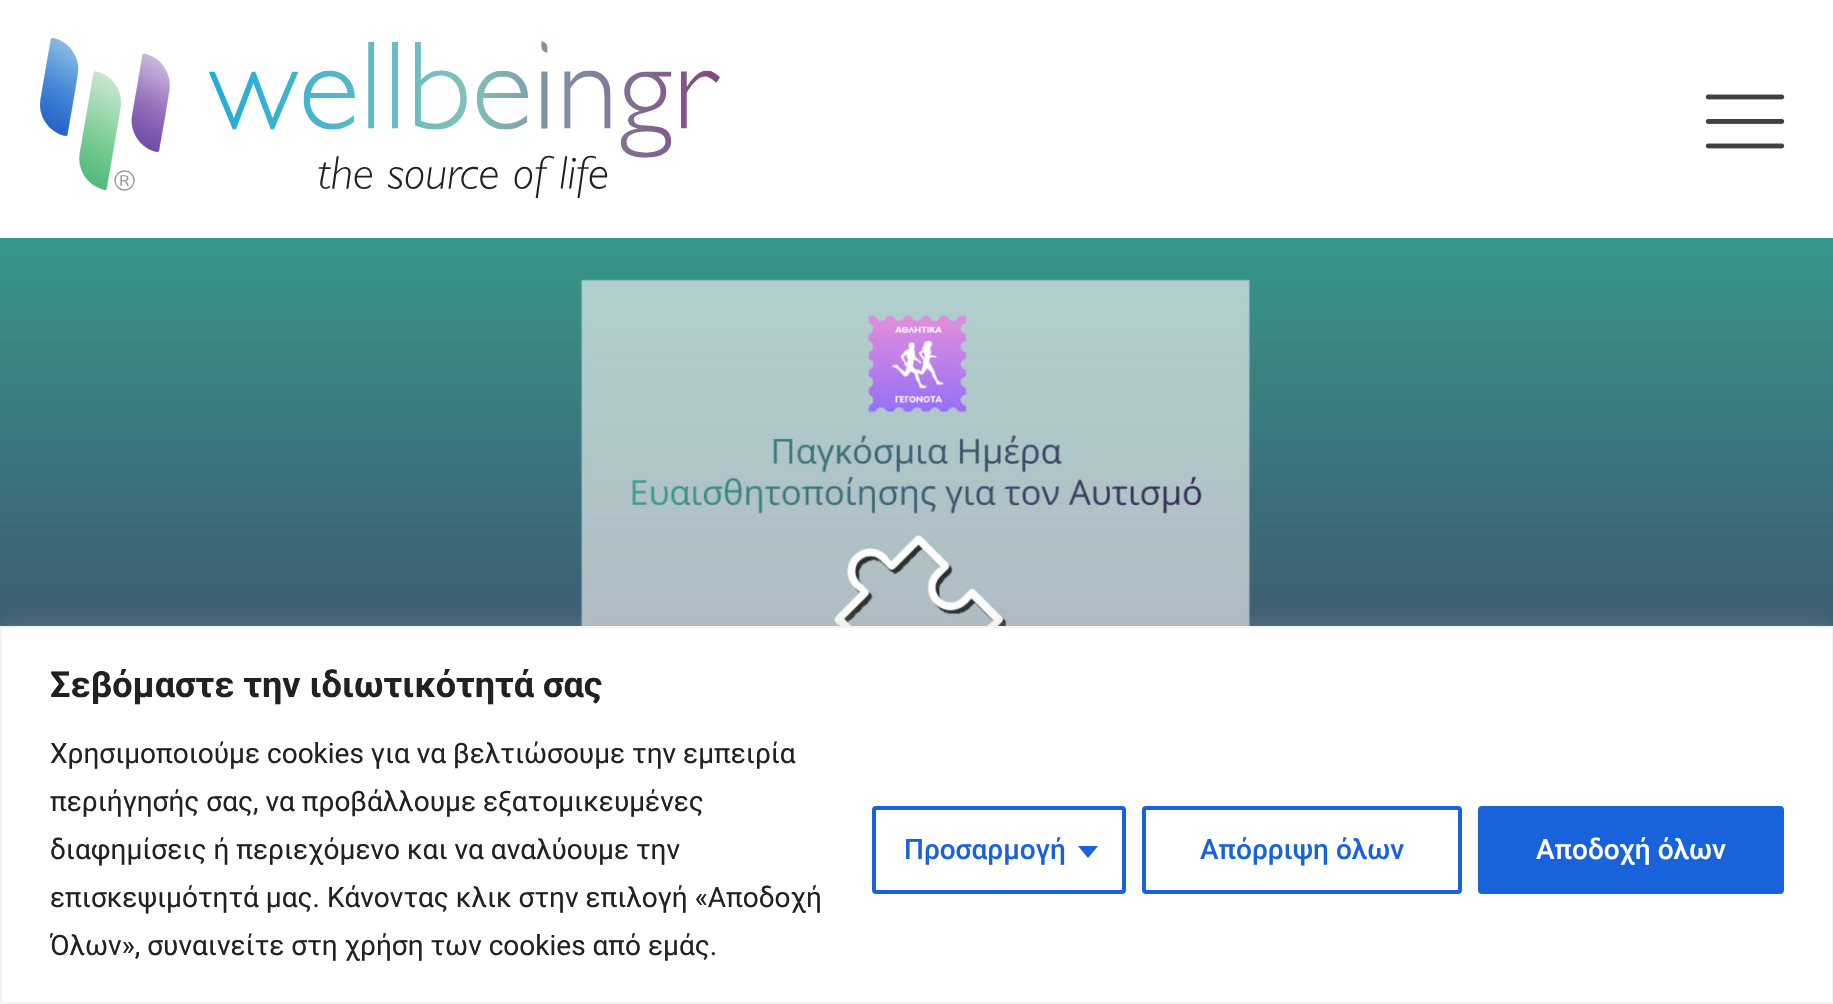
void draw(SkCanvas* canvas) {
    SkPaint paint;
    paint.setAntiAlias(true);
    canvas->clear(0xFFFFFFFF);
    canvas->drawImageRect(SkImages::DeferredFromEncodedData(SkData::MakeFromFileName("img1.png")), SkRect::MakeXYWH(40, 38, 680, 160), SkSamplingOptions());
    canvas->drawImageRect(SkImages::DeferredFromEncodedData(SkData::MakeFromFileName("img2.png")), SkRect::MakeXYWH(1705, 94, 80, 55), SkSamplingOptions());
    canvas->drawImageRect(SkImages::DeferredFromEncodedData(SkData::MakeFromFileName("img3.png")), SkRect::MakeXYWH(0, 238, 1833, 388), SkSamplingOptions());
    paint.setColor(0x4DACABAB);
    paint.setMaskFilter(SkMaskFilter::MakeBlur(kNormal_SkBlurStyle, 10));
    canvas->drawRect(SkRect::MakeXYWH(0, 624, 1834, 378), paint);
    paint.setMaskFilter(nullptr);
    paint.setColor(0xFFFFFFFF);
    canvas->drawRect(SkRect::MakeXYWH(1, 627, 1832, 376), paint);
    paint.setStyle(SkPaint::kStroke_Style);
    paint.setStrokeWidth(2);
    paint.setColor(0xFFF4F4F4);
    canvas->drawRect(SkRect::MakeXYWH(1, 627, 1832, 376), paint);
    SkFont font1(fontMgr->matchFamilyStyle("Roboto", SkFontStyle::Bold()), 36);
    font1.setSubpixel(true);
    paint.setStyle(SkPaint::kFill_Style);
    paint.setColor(0xFF212121);
    canvas->drawString("Σεβόμαστε την ιδιωτικότητά σας", 50, 697, font1, paint);
    SkFont font2(fontMgr->matchFamilyStyle("Roboto", SkFontStyle::Normal()), 28);
    font2.setSubpixel(true);
    canvas->drawString("Χρησιμοποιούμε cookies για να βελτιώσουμε την εμπειρία", 50, 763, font2, paint);
    canvas->drawString("περιήγησής σας, να προβάλλουμε εξατομικευμένες", 50, 811, font2, paint);
    canvas->drawString("διαφημίσεις ή περιεχόμενο και να αναλύουμε την", 50, 859, font2, paint);
    canvas->drawString("επισκεψιμότητά μας. Κάνοντας κλικ στην επιλογή «Αποδοχή", 50, 907, font2, paint);
    canvas->drawString("Όλων», συναινείτε στη χρήση των cookies από εμάς.", 50, 955, font2, paint);
    paint.setStyle(SkPaint::kStroke_Style);
    paint.setStrokeWidth(4);
    paint.setColor(0xFF1863DC);
    canvas->drawRoundRect(SkRect::MakeXYWH(874, 808, 250, 84), 2, 2, paint);
    SkFont font3(fontMgr->matchFamilyStyle("Roboto", SkFontStyle(500, SkFontStyle::kNormal_Width, SkFontStyle::kUpright_Slant)), 28);
    font3.setSubpixel(true);
    paint.setStyle(SkPaint::kFill_Style);
    canvas->drawString("Προσαρμογή", 904, 859, font3, paint);
    canvas->drawPath(SkPathBuilder().moveTo(1078, 846).lineTo(1098, 846).lineTo(1088, 858).close().detach(), paint);
    paint.setStyle(SkPaint::kStroke_Style);
    canvas->drawRoundRect(SkRect::MakeXYWH(1144, 808, 316, 84), 2, 2, paint);
    paint.setStyle(SkPaint::kFill_Style);
    canvas->drawString("Απόρριψη όλων", 1200, 859, font3, paint);
    canvas->drawRoundRect(SkRect::MakeXYWH(1480, 808, 302, 84), 2, 2, paint);
    paint.setStyle(SkPaint::kStroke_Style);
    canvas->drawRoundRect(SkRect::MakeXYWH(1480, 808, 302, 84), 2, 2, paint);
    paint.setStyle(SkPaint::kFill_Style);
    paint.setColor(0xFFFFFFFF);
    canvas->drawString("Αποδοχή όλων", 1536, 859, font3, paint);
}
